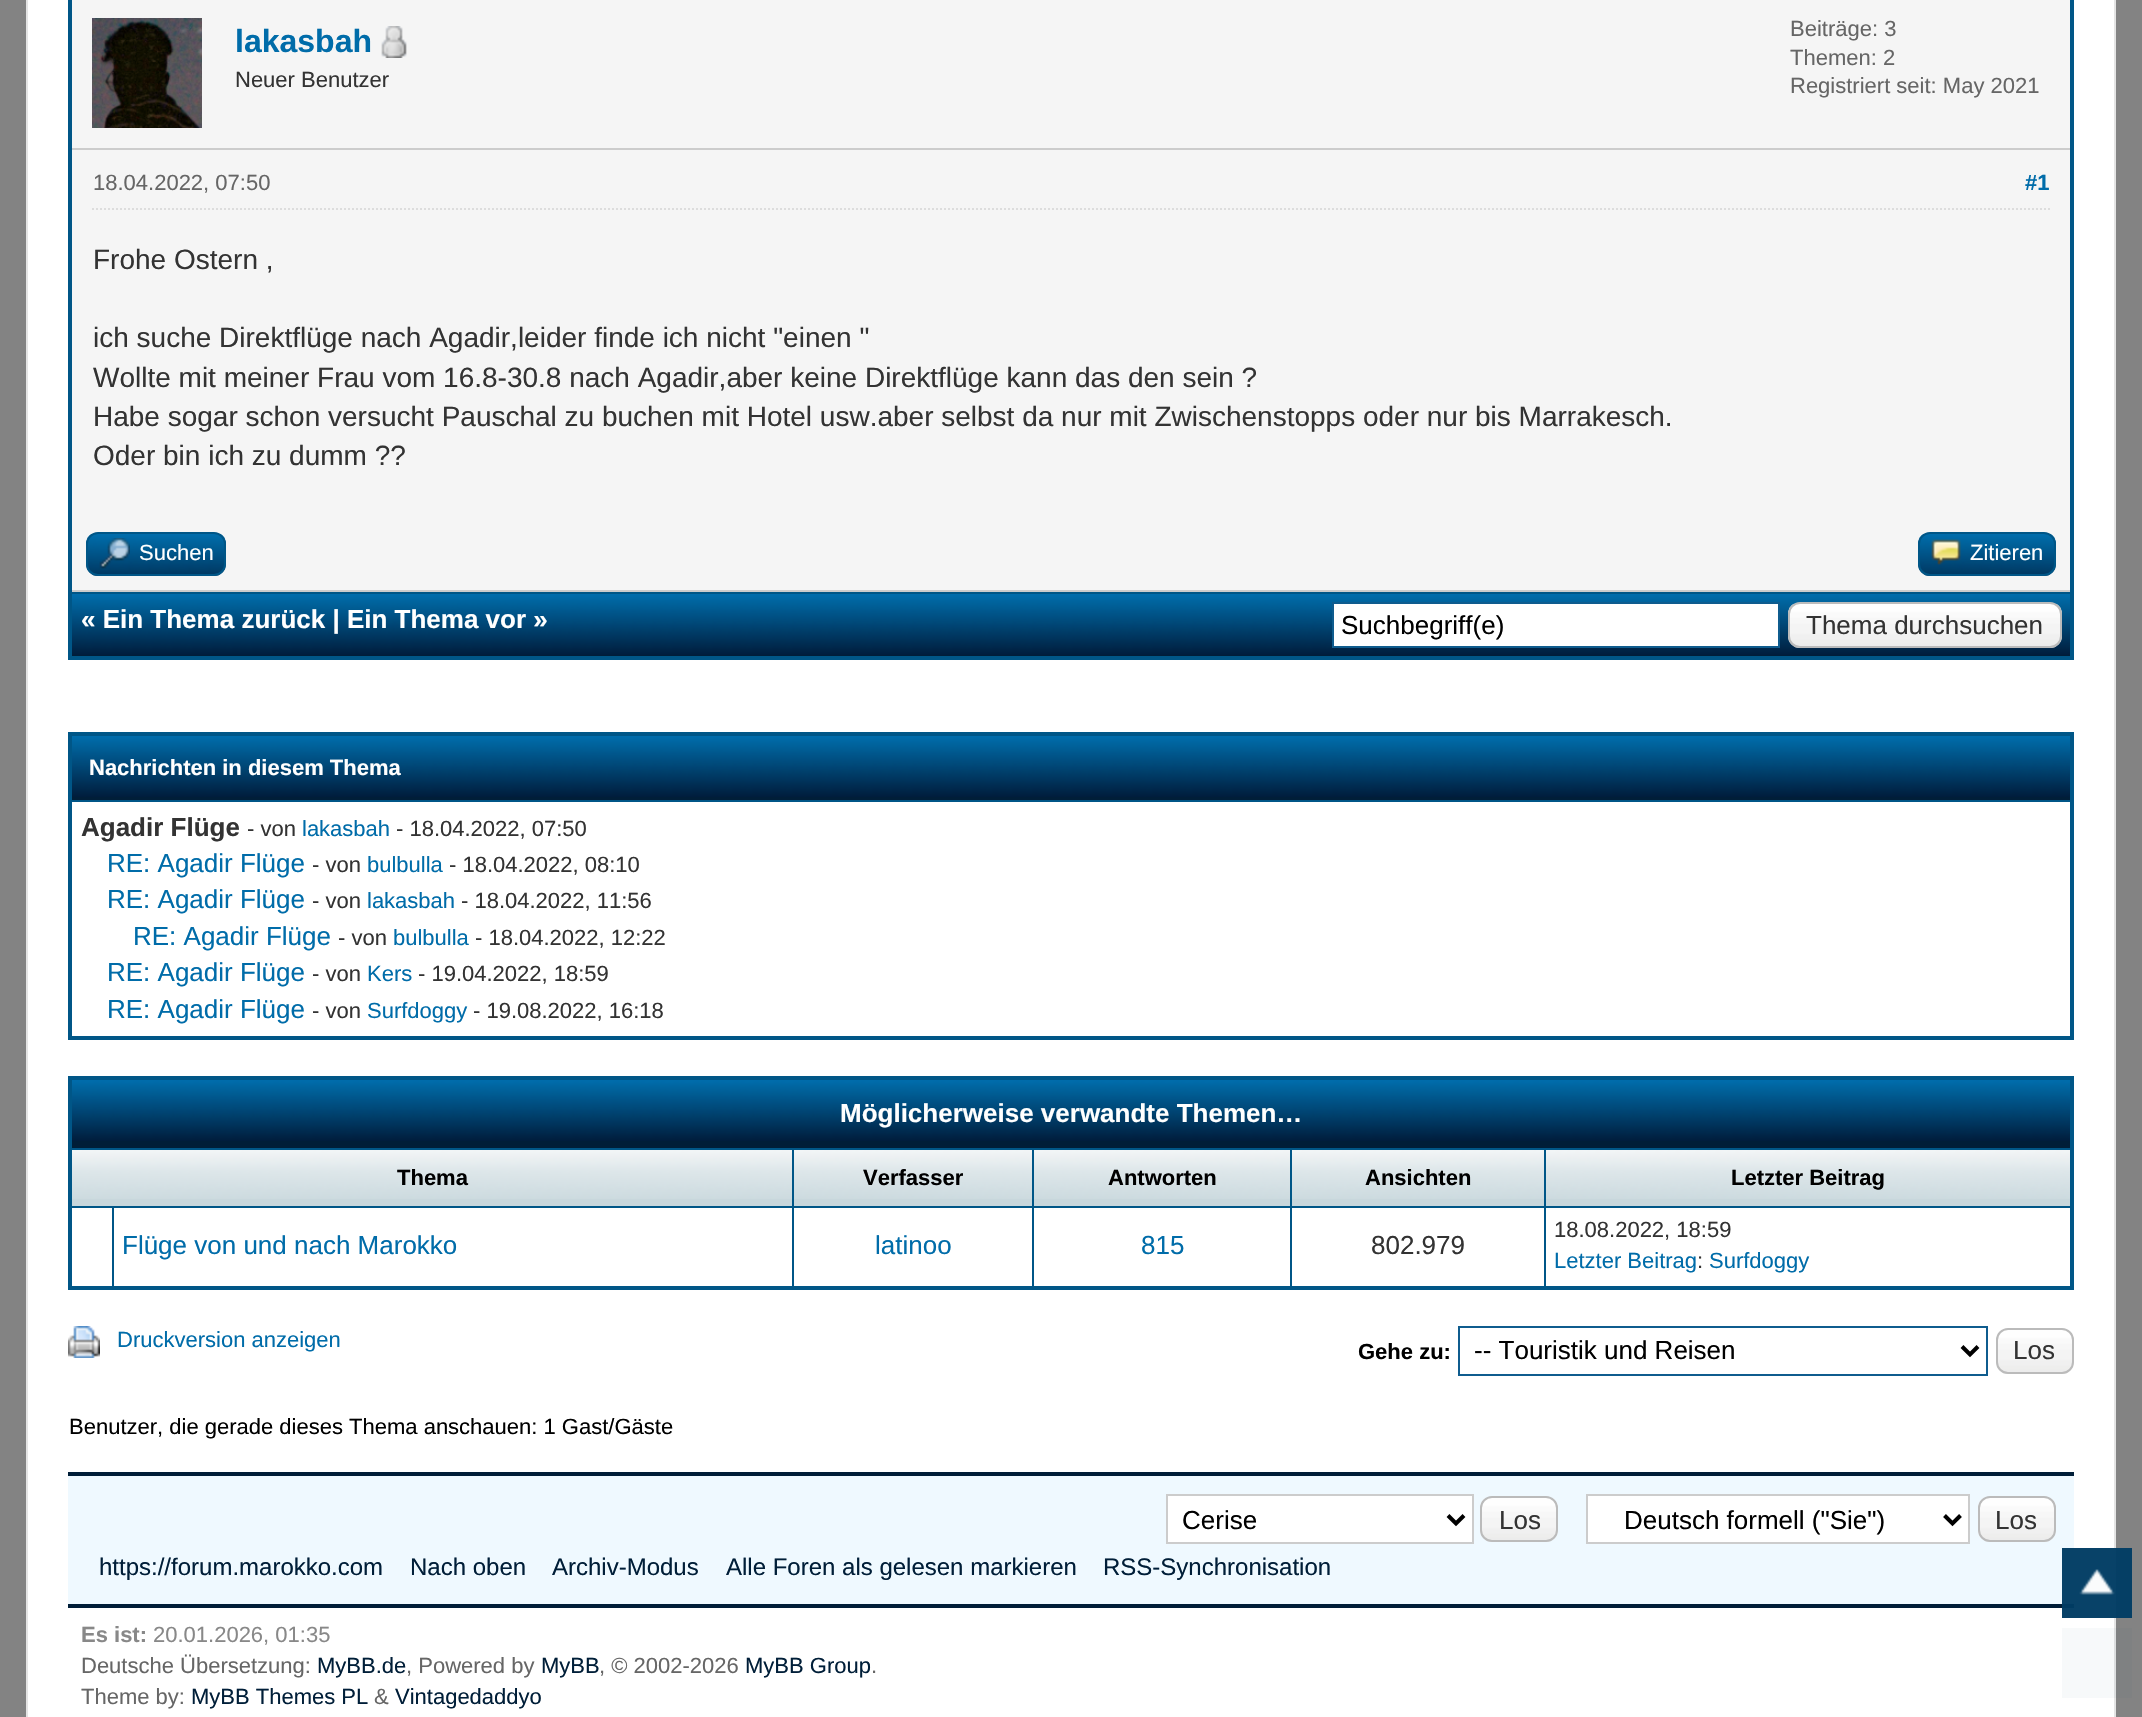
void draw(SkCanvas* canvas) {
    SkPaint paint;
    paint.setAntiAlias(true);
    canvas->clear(0xFF838383);
    paint.setColor(0xFFFFFFFF);
    canvas->drawRect(SkRect::MakeXYWH(27, -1, 2088, 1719), paint);
    paint.setStyle(SkPaint::kStroke_Style);
    paint.setStrokeWidth(2);
    paint.setColor(0xFFE4E4E4);
    canvas->drawRect(SkRect::MakeXYWH(27, -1, 2088, 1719), paint);
    paint.setStyle(SkPaint::kFill_Style);
    paint.setColor(0xFF005687);
    canvas->drawRect(SkRect::MakeXYWH(68, 0, 2006, 660), paint);
    paint.setColor(0xFFF5F5F5);
    canvas->drawRect(SkRect::MakeXYWH(72, 0, 1998, 148), paint);
    paint.setColor(0xFFCCCCCC);
    canvas->drawRect(SkRect::MakeXYWH(72, 148, 1998, 2), paint);
    canvas->drawImageRect(SkImages::DeferredFromEncodedData(SkData::MakeFromFileName("img1.png")), SkRect::MakeXYWH(92, 18, 110, 110), SkSamplingOptions());
    SkFont font1(fontMgr->matchFamilyStyle("Liberation Sans", SkFontStyle::Bold()), 32);
    font1.setSubpixel(true);
    paint.setColor(0xFF006CA9);
    canvas->drawString("lakasbah", 235, 52, font1, paint);
    canvas->drawImageRect(SkImages::DeferredFromEncodedData(SkData::MakeFromFileName("img2.png")), SkRect::MakeXYWH(381, 26, 26, 32), SkSamplingOptions());
    SkFont font2(fontMgr->matchFamilyStyle("Liberation Sans", SkFontStyle::Normal()), 22);
    font2.setSubpixel(true);
    paint.setColor(0xFF333333);
    canvas->drawString("Neuer Benutzer", 235, 87, font2, paint);
    paint.setColor(0xFF666666);
    canvas->drawString("Beiträge: 3", 1790, 36, font2, paint);
    canvas->drawString("Themen: 2", 1790, 65, font2, paint);
    canvas->drawString("Registriert seit: May 2021", 1790, 93, font2, paint);
    paint.setColor(0xFFF5F5F5);
    canvas->drawRect(SkRect::MakeXYWH(72, 150, 1998, 440), paint);
    paint.setStyle(SkPaint::kStroke_Style);
    paint.setColor(0xFFDDDDDD);
    paint.setPathEffect(SkDashPathEffect::Make({{2, 2}}, 0));
    canvas->drawPath(SkPathBuilder().moveTo(92, 209).lineTo(2050, 209).detach(), paint);
    paint.setPathEffect(nullptr);
    paint.setStyle(SkPaint::kFill_Style);
    paint.setColor(0xFF666666);
    canvas->drawString("18.04.2022, 07:50", 93, 190, font2, paint);
    SkFont font3(fontMgr->matchFamilyStyle("Liberation Sans", SkFontStyle::Bold()), 22);
    font3.setSubpixel(true);
    paint.setColor(0xFF006CA9);
    canvas->drawString("#1", 2025, 190, font3, paint);
    SkFont font4(fontMgr->matchFamilyStyle("Liberation Sans", SkFontStyle::Normal()), 28);
    font4.setSubpixel(true);
    paint.setColor(0xFF333333);
    canvas->drawString("Frohe Ostern ,", 93, 269, font4, paint);
    canvas->drawString("ich suche Direktflüge nach Agadir,leider finde ich nicht \"einen \"", 93, 347, font4, paint);
    canvas->drawString("Wollte mit meiner Frau vom 16.8-30.8 nach Agadir,aber keine Direktflüge kann das den sein ?", 93, 387, font4, paint);
    canvas->drawString("Habe sogar schon versucht Pauschal zu buchen mit Hotel usw.aber selbst da nur mit Zwischenstopps oder nur bis Marrakesch.", 93, 426, font4, paint);
    canvas->drawString("Oder bin ich zu dumm ?\077", 93, 465, font4, paint);
    paint.setColor(0xFFCCCCCC);
    canvas->drawRect(SkRect::MakeXYWH(72, 590, 1998, 2), paint);
    canvas->drawImageRect(SkImages::DeferredFromEncodedData(SkData::MakeFromFileName("img3.png")), SkRect::MakeXYWH(86, 534, 140, 42), SkSamplingOptions());
    paint.setStyle(SkPaint::kStroke_Style);
    paint.setColor(0xFF005687);
    canvas->drawRoundRect(SkRect::MakeXYWH(87, 533, 138, 42), 11, 11, paint);
    canvas->drawImageRect(SkImages::DeferredFromEncodedData(SkData::MakeFromFileName("img4.png")), SkRect::MakeXYWH(99, 538, 31, 31), SkSamplingOptions());
    paint.setStyle(SkPaint::kFill_Style);
    paint.setColor(0xFFFFFFFF);
    canvas->drawString("Suchen", 139, 560, font2, paint);
    canvas->drawImageRect(SkImages::DeferredFromEncodedData(SkData::MakeFromFileName("img5.png")), SkRect::MakeXYWH(1918, 534, 138, 42), SkSamplingOptions());
    paint.setStyle(SkPaint::kStroke_Style);
    paint.setColor(0xFF005687);
    canvas->drawRoundRect(SkRect::MakeXYWH(1919, 533, 136, 42), 11, 11, paint);
    canvas->drawImageRect(SkImages::DeferredFromEncodedData(SkData::MakeFromFileName("img6.png")), SkRect::MakeXYWH(1931, 539, 30, 26), SkSamplingOptions());
    paint.setStyle(SkPaint::kFill_Style);
    paint.setColor(0xFFFFFFFF);
    canvas->drawString("Zitieren", 1970, 560, font2, paint);
    paint.setColor(0xFF001E38);
    canvas->drawRect(SkRect::MakeXYWH(72, 655, 1998, 1), paint);
    canvas->drawImageRect(SkImages::DeferredFromEncodedData(SkData::MakeFromFileName("img7.png")), SkRect::MakeXYWH(72, 594, 1998, 61), SkSamplingOptions());
    SkFont font5(fontMgr->matchFamilyStyle("Liberation Sans", SkFontStyle::Bold()), 26);
    font5.setSubpixel(true);
    paint.setColor(0xFFFFFFFF);
    canvas->drawString("« Ein Thema zurück | Ein Thema vor »", 81, 628, font5, paint);
    canvas->drawRect(SkRect::MakeXYWH(1333, 603, 446, 44), paint);
    paint.setStyle(SkPaint::kStroke_Style);
    paint.setColor(0xFF0F5C8E);
    canvas->drawRect(SkRect::MakeXYWH(1333, 603, 446, 44), paint);
    SkFont font6(fontMgr->matchFamilyStyle("Liberation Sans", SkFontStyle::Normal()), 26);
    font6.setSubpixel(true);
    paint.setStyle(SkPaint::kFill_Style);
    paint.setColor(0xFF000000);
    canvas->drawString("Suchbegriff(e)", 1341, 634, font6, paint);
    canvas->drawImageRect(SkImages::DeferredFromEncodedData(SkData::MakeFromFileName("img8.png")), SkRect::MakeXYWH(1788, 604, 274, 44), SkSamplingOptions());
    paint.setStyle(SkPaint::kStroke_Style);
    paint.setColor(0xFFBBBBBB);
    canvas->drawRoundRect(SkRect::MakeXYWH(1789, 603, 272, 44), 11, 11, paint);
    paint.setStyle(SkPaint::kFill_Style);
    paint.setColor(0xFF333333);
    canvas->drawString("Thema durchsuchen", 1806, 634, font6, paint);
    paint.setColor(0xFF005687);
    canvas->drawRect(SkRect::MakeXYWH(68, 732, 2006, 308), paint);
    paint.setColor(0xFF001E38);
    canvas->drawRect(SkRect::MakeXYWH(72, 797, 1998, 3), paint);
    canvas->drawImageRect(SkImages::DeferredFromEncodedData(SkData::MakeFromFileName("img7.png")), SkRect::MakeXYWH(72, 736, 1998, 61), SkSamplingOptions());
    paint.setColor(0xFFFFFFFF);
    canvas->drawString("Nachrichten in diesem Thema", 89, 775, font3, paint);
    canvas->drawRect(SkRect::MakeXYWH(72, 802, 1998, 234), paint);
    paint.setColor(0xFF333333);
    canvas->drawString("Agadir Flüge", 81, 836, font5, paint);
    canvas->drawString("- von", 247, 836, font2, paint);
    paint.setColor(0xFF006CA9);
    canvas->drawString("lakasbah", 302, 836, font2, paint);
    paint.setColor(0xFF333333);
    canvas->drawString("- 18.04.2022, 07:50", 396, 836, font2, paint);
    paint.setColor(0xFF006CA9);
    canvas->drawString("RE: Agadir Flüge", 107, 872, font6, paint);
    paint.setColor(0xFF333333);
    canvas->drawString("- von", 312, 872, font2, paint);
    paint.setColor(0xFF006CA9);
    canvas->drawString("bulbulla", 367, 872, font2, paint);
    paint.setColor(0xFF333333);
    canvas->drawString("- 18.04.2022, 08:10", 449, 872, font2, paint);
    paint.setColor(0xFF006CA9);
    canvas->drawString("RE: Agadir Flüge", 107, 908, font6, paint);
    paint.setColor(0xFF333333);
    canvas->drawString("- von", 312, 908, font2, paint);
    paint.setColor(0xFF006CA9);
    canvas->drawString("lakasbah", 367, 908, font2, paint);
    paint.setColor(0xFF333333);
    canvas->drawString("- 18.04.2022, 11:56", 461, 908, font2, paint);
    paint.setColor(0xFF006CA9);
    canvas->drawString("RE: Agadir Flüge", 133, 945, font6, paint);
    paint.setColor(0xFF333333);
    canvas->drawString("- von", 338, 945, font2, paint);
    paint.setColor(0xFF006CA9);
    canvas->drawString("bulbulla", 393, 945, font2, paint);
    paint.setColor(0xFF333333);
    canvas->drawString("- 18.04.2022, 12:22", 475, 945, font2, paint);
    paint.setColor(0xFF006CA9);
    canvas->drawString("RE: Agadir Flüge", 107, 981, font6, paint);
    paint.setColor(0xFF333333);
    canvas->drawString("- von", 312, 981, font2, paint);
    paint.setColor(0xFF006CA9);
    canvas->drawString("Kers", 367, 981, font2, paint);
    paint.setColor(0xFF333333);
    canvas->drawString("- 19.04.2022, 18:59", 418, 981, font2, paint);
    paint.setColor(0xFF006CA9);
    canvas->drawString("RE: Agadir Flüge", 107, 1018, font6, paint);
    paint.setColor(0xFF333333);
    canvas->drawString("- von", 312, 1018, font2, paint);
    paint.setColor(0xFF006CA9);
    canvas->drawString("Surfdoggy", 367, 1018, font2, paint);
    paint.setColor(0xFF333333);
    canvas->drawString("- 19.08.2022, 16:18", 473, 1018, font2, paint);
    paint.setColor(0xFF005687);
    canvas->drawRect(SkRect::MakeXYWH(68, 1076, 2006, 214), paint);
    paint.setColor(0xFF001E38);
    canvas->drawRect(SkRect::MakeXYWH(72, 1141, 1998, 7), paint);
    canvas->drawImageRect(SkImages::DeferredFromEncodedData(SkData::MakeFromFileName("img7.png")), SkRect::MakeXYWH(72, 1080, 1998, 61), SkSamplingOptions());
    paint.setColor(0xFFFFFFFF);
    canvas->drawString("Möglicherweise verwandte Themen…", 840, 1122, font5, paint);
    paint.setColor(0xFFC8D7DC);
    canvas->drawRect(SkRect::MakeXYWH(72, 1199, 720, 7), paint);
    canvas->drawImageRect(SkImages::DeferredFromEncodedData(SkData::MakeFromFileName("img9.png")), SkRect::MakeXYWH(72, 1150, 720, 49), SkSamplingOptions());
    paint.setColor(0xFF000000);
    canvas->drawString("Thema", 397, 1185, font3, paint);
    paint.setColor(0xFFC8D7DC);
    canvas->drawRect(SkRect::MakeXYWH(794, 1199, 238, 7), paint);
    canvas->drawImageRect(SkImages::DeferredFromEncodedData(SkData::MakeFromFileName("img10.png")), SkRect::MakeXYWH(794, 1150, 238, 49), SkSamplingOptions());
    paint.setColor(0xFF000000);
    canvas->drawString("Verfasser", 863, 1185, font3, paint);
    paint.setColor(0xFFC8D7DC);
    canvas->drawRect(SkRect::MakeXYWH(1034, 1199, 256, 7), paint);
    canvas->drawImageRect(SkImages::DeferredFromEncodedData(SkData::MakeFromFileName("img11.png")), SkRect::MakeXYWH(1034, 1150, 256, 49), SkSamplingOptions());
    paint.setColor(0xFF000000);
    canvas->drawString("Antworten", 1108, 1185, font3, paint);
    paint.setColor(0xFFC8D7DC);
    canvas->drawRect(SkRect::MakeXYWH(1292, 1199, 252, 7), paint);
    canvas->drawImageRect(SkImages::DeferredFromEncodedData(SkData::MakeFromFileName("img12.png")), SkRect::MakeXYWH(1292, 1150, 252, 49), SkSamplingOptions());
    paint.setColor(0xFF000000);
    canvas->drawString("Ansichten", 1365, 1185, font3, paint);
    paint.setColor(0xFFC8D7DC);
    canvas->drawRect(SkRect::MakeXYWH(1546, 1199, 524, 7), paint);
    canvas->drawImageRect(SkImages::DeferredFromEncodedData(SkData::MakeFromFileName("img13.png")), SkRect::MakeXYWH(1546, 1150, 524, 49), SkSamplingOptions());
    paint.setColor(0xFF000000);
    canvas->drawString("Letzter Beitrag", 1731, 1185, font3, paint);
    paint.setColor(0xFFFFFFFF);
    canvas->drawRect(SkRect::MakeXYWH(72, 1208, 40, 78), paint);
    canvas->drawRect(SkRect::MakeXYWH(114, 1208, 678, 78), paint);
    paint.setColor(0xFF006CA9);
    canvas->drawString("Flüge von und nach Marokko", 122, 1254, font6, paint);
    paint.setColor(0xFFFFFFFF);
    canvas->drawRect(SkRect::MakeXYWH(794, 1208, 238, 78), paint);
    paint.setColor(0xFF006CA9);
    canvas->drawString("latinoo", 875, 1254, font6, paint);
    paint.setColor(0xFFFFFFFF);
    canvas->drawRect(SkRect::MakeXYWH(1034, 1208, 256, 78), paint);
    paint.setColor(0xFF006CA9);
    canvas->drawString("815", 1141, 1254, font6, paint);
    paint.setColor(0xFFFFFFFF);
    canvas->drawRect(SkRect::MakeXYWH(1292, 1208, 252, 78), paint);
    paint.setColor(0xFF333333);
    canvas->drawString("802.979", 1371, 1254, font6, paint);
    paint.setColor(0xFFFFFFFF);
    canvas->drawRect(SkRect::MakeXYWH(1546, 1208, 524, 78), paint);
    paint.setColor(0xFF333333);
    canvas->drawString("18.08.2022, 18:59", 1554, 1237, font2, paint);
    paint.setColor(0xFF006CA9);
    canvas->drawString("Letzter Beitrag", 1554, 1268, font2, paint);
    paint.setColor(0xFF333333);
    canvas->drawString(":", 1697, 1268, font2, paint);
    paint.setColor(0xFF006CA9);
    canvas->drawString("Surfdoggy", 1709, 1268, font2, paint);
    canvas->drawImageRect(SkImages::DeferredFromEncodedData(SkData::MakeFromFileName("img14.png")), SkRect::MakeXYWH(68, 1326, 32, 32), SkSamplingOptions());
    canvas->drawString("Druckversion anzeigen", 117, 1347, font2, paint);
    paint.setColor(0xFF000000);
    canvas->drawString("Gehe zu:", 1358, 1359, font3, paint);
    paint.setStyle(SkPaint::kStroke_Style);
    paint.setColor(0xFF0F5C8E);
    canvas->drawRect(SkRect::MakeXYWH(1459, 1327, 528, 48), paint);
    paint.setStrokeWidth(4);
    paint.setColor(0xFF000000);
    canvas->drawPath(SkPathBuilder().moveTo(1962, 1346.5f).lineTo(1970, 1354.5f).lineTo(1978, 1346.5f).detach(), paint);
    paint.setStyle(SkPaint::kFill_Style);
    canvas->drawString("-- Touristik und Reisen", 1474, 1359, font6, paint);
    canvas->drawImageRect(SkImages::DeferredFromEncodedData(SkData::MakeFromFileName("img15.png")), SkRect::MakeXYWH(1996, 1330, 78, 44), SkSamplingOptions());
    paint.setStyle(SkPaint::kStroke_Style);
    paint.setStrokeWidth(2);
    paint.setColor(0xFFBBBBBB);
    canvas->drawRoundRect(SkRect::MakeXYWH(1997, 1329, 76, 44), 11, 11, paint);
    paint.setStyle(SkPaint::kFill_Style);
    paint.setColor(0xFF333333);
    canvas->drawString("Los", 2013, 1359, font6, paint);
    paint.setColor(0xFF000000);
    canvas->drawString("Benutzer, die gerade dieses Thema anschauen: 1 Gast/Gäste", 69, 1434, font2, paint);
    paint.setColor(0xFFEFF9FF);
    canvas->drawRect(SkRect::MakeXYWH(68, 1476, 2006, 128), paint);
    paint.setColor(0xFF001E38);
    canvas->drawRect(SkRect::MakeXYWH(68, 1472, 2006, 4), paint);
    canvas->drawRect(SkRect::MakeXYWH(68, 1604, 2006, 4), paint);
    paint.setColor(0xFFFFFFFF);
    canvas->drawRect(SkRect::MakeXYWH(1167, 1495, 306, 48), paint);
    paint.setStyle(SkPaint::kStroke_Style);
    paint.setColor(0xFFCCCCCC);
    canvas->drawRect(SkRect::MakeXYWH(1167, 1495, 306, 48), paint);
    paint.setStrokeWidth(4);
    paint.setColor(0xFF000000);
    canvas->drawPath(SkPathBuilder().moveTo(1448, 1515.5f).lineTo(1456, 1523.5f).lineTo(1464, 1515.5f).detach(), paint);
    paint.setStyle(SkPaint::kFill_Style);
    canvas->drawString("Cerise", 1182, 1529, font6, paint);
    canvas->drawImageRect(SkImages::DeferredFromEncodedData(SkData::MakeFromFileName("img16.png")), SkRect::MakeXYWH(1480, 1498, 78, 44), SkSamplingOptions());
    paint.setStyle(SkPaint::kStroke_Style);
    paint.setStrokeWidth(2);
    paint.setColor(0xFFBBBBBB);
    canvas->drawRoundRect(SkRect::MakeXYWH(1481, 1497, 76, 44), 11, 11, paint);
    paint.setStyle(SkPaint::kFill_Style);
    paint.setColor(0xFF333333);
    canvas->drawString("Los", 1499, 1529, font6, paint);
    paint.setColor(0xFFFFFFFF);
    canvas->drawRect(SkRect::MakeXYWH(1587, 1495, 382, 48), paint);
    paint.setStyle(SkPaint::kStroke_Style);
    paint.setColor(0xFFCCCCCC);
    canvas->drawRect(SkRect::MakeXYWH(1587, 1495, 382, 48), paint);
    paint.setStrokeWidth(4);
    paint.setColor(0xFF000000);
    canvas->drawPath(SkPathBuilder().moveTo(1944.5f, 1515.5f).lineTo(1952.5f, 1523.5f).lineTo(1960.5f, 1515.5f).detach(), paint);
    paint.setStyle(SkPaint::kFill_Style);
    canvas->drawString("Deutsch formell (\"Sie\")", 1624, 1529, font6, paint);
    canvas->drawImageRect(SkImages::DeferredFromEncodedData(SkData::MakeFromFileName("img16.png")), SkRect::MakeXYWH(1978, 1498, 78, 44), SkSamplingOptions());
    paint.setStyle(SkPaint::kStroke_Style);
    paint.setStrokeWidth(2);
    paint.setColor(0xFFBBBBBB);
    canvas->drawRoundRect(SkRect::MakeXYWH(1979, 1497, 76, 44), 11, 11, paint);
    paint.setStyle(SkPaint::kFill_Style);
    paint.setColor(0xFF333333);
    canvas->drawString("Los", 1995, 1529, font6, paint);
    SkFont font7(fontMgr->matchFamilyStyle("Liberation Sans", SkFontStyle::Normal()), 24);
    font7.setSubpixel(true);
    paint.setColor(0xFF001E38);
    canvas->drawString("https://forum.marokko.com", 99, 1575, font7, paint);
    canvas->drawString("Nach oben", 410, 1575, font7, paint);
    canvas->drawString("Archiv-Modus", 552, 1575, font7, paint);
    canvas->drawString("Alle Foren als gelesen markieren", 726, 1575, font7, paint);
    canvas->drawString("RSS-Synchronisation", 1103, 1575, font7, paint);
    paint.setColor(0xF7003C63);
    canvas->drawRect(SkRect::MakeXYWH(2062, 1548, 70, 70), paint);
    canvas->drawImageRect(SkImages::DeferredFromEncodedData(SkData::MakeFromFileName("img17.png")), SkRect::MakeXYWH(2079, 1569, 36, 26), SkSamplingOptions());
    paint.setColor(0xFF888888);
    canvas->drawString("Es ist:", 81, 1642, font3, paint);
    canvas->drawString("20.01.2026, 01:35", 153, 1642, font2, paint);
    paint.setColor(0x08003C63);
    canvas->drawRect(SkRect::MakeXYWH(2062, 1628, 70, 70), paint);
    paint.setColor(0xFF666666);
    canvas->drawString("Deutsche Übersetzung:", 81, 1673, font2, paint);
    paint.setColor(0xFF001E38);
    canvas->drawString("MyBB.de", 317, 1673, font2, paint);
    paint.setColor(0xFF666666);
    canvas->drawString(", Powered by", 406, 1673, font2, paint);
    paint.setColor(0xFF001E38);
    canvas->drawString("MyBB", 541, 1673, font2, paint);
    paint.setColor(0xFF666666);
    canvas->drawString(", © 2002-2026", 599, 1673, font2, paint);
    paint.setColor(0xFF001E38);
    canvas->drawString("MyBB Group", 745, 1673, font2, paint);
    paint.setColor(0xFF666666);
    canvas->drawString(".", 871, 1673, font2, paint);
    canvas->drawString("Theme by:", 81, 1704, font2, paint);
    paint.setColor(0xFF001E38);
    canvas->drawString("MyBB Themes PL", 191, 1704, font2, paint);
    paint.setColor(0xFF666666);
    canvas->drawString("&", 374, 1704, font2, paint);
    paint.setColor(0xFF001E38);
    canvas->drawString("Vintagedaddyo", 395, 1704, font2, paint);
}
